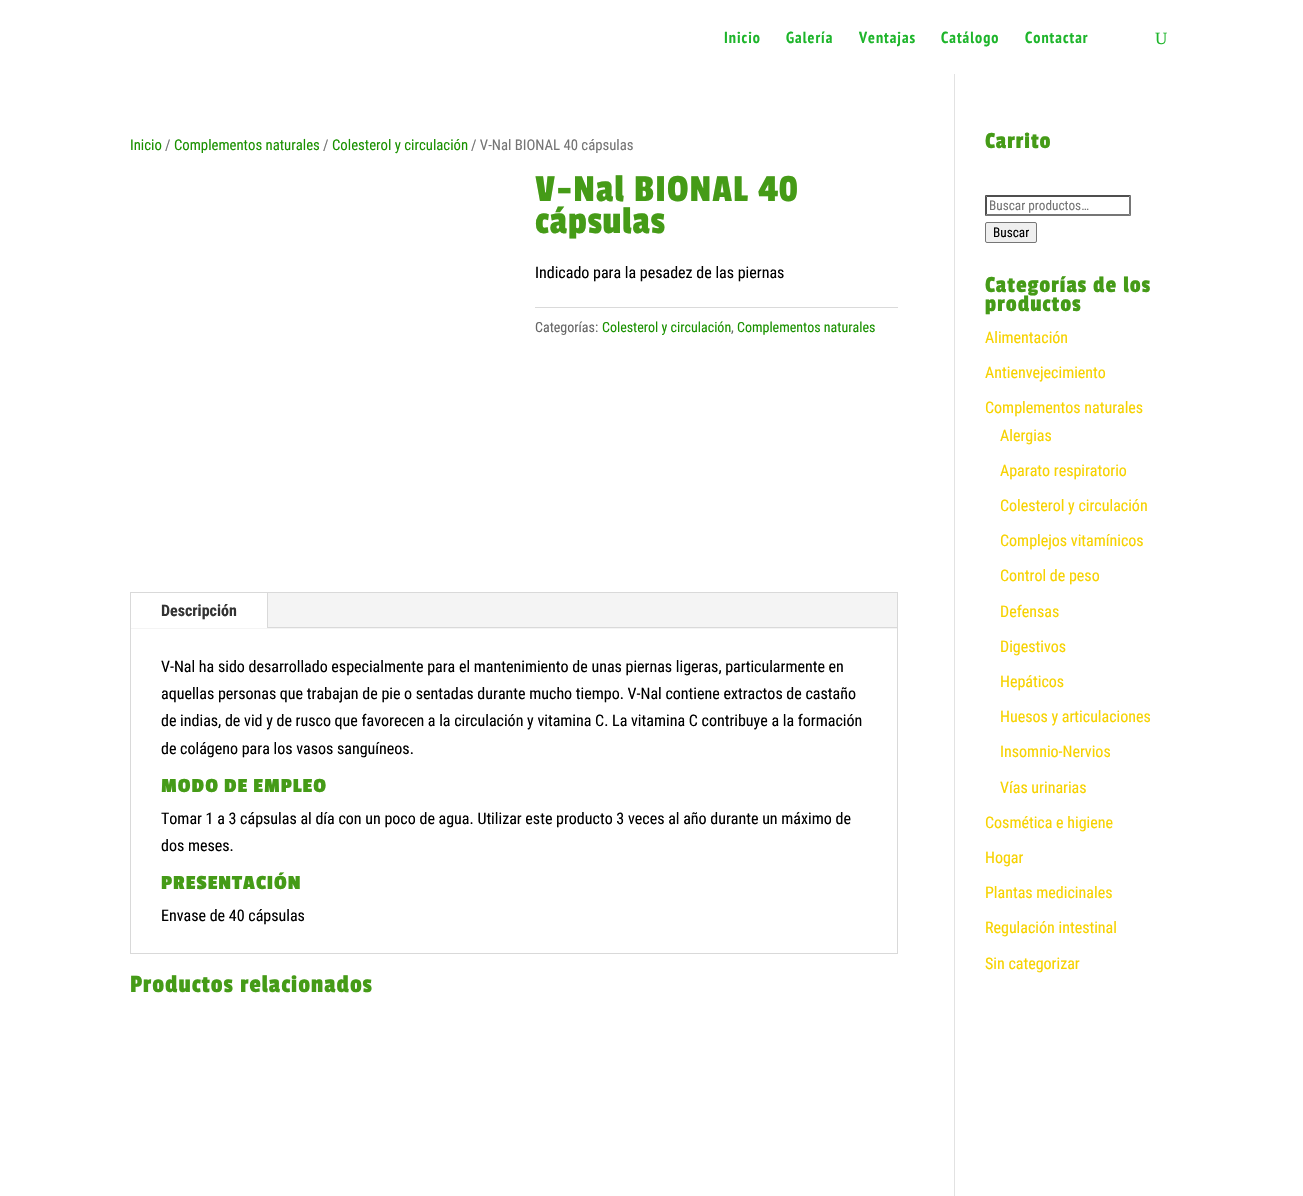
void draw(SkCanvas* canvas) {
    SkPaint paint;
    paint.setAntiAlias(true);
    auto spacedText = [&](const char* s, float x, float y, const SkFont& font, const SkPaint& ink, float letter, float word) {
        std::vector<SkGlyphID> glyphs(font.countText(s, strlen(s), SkTextEncoding::kUTF8));
        std::vector<float> xs(glyphs.size());
        font.textToGlyphs(s, strlen(s), SkTextEncoding::kUTF8, glyphs);
        font.getXPos(glyphs, xs, x);
        float extra = 0;
        for (size_t i = 0; i < glyphs.size(); i++) {
            xs[i] += extra;
            extra += letter + word * (glyphs[i] == font.unicharToGlyph(' '));
        }
        canvas->drawTextBlob(SkTextBlob::MakeFromPosHGlyphs(glyphs, xs, y, font), 0, 0, ink);
    };
    canvas->clear(0xFFFFFFFF);
    SkFont font1(fontMgr->matchFamilyStyle("PT Sans Narrow", SkFontStyle::Bold()), 16);
    font1.setSubpixel(true);
    paint.setColor(0xFF1EB52B);
    spacedText("Inicio", 724, 43, font1, paint, 1, 0);
    spacedText("Galería", 786, 43, font1, paint, 1, 0);
    spacedText("Ventajas", 859, 43, font1, paint, 1, 0);
    spacedText("Catálogo", 941, 43, font1, paint, 1, 0);
    spacedText("Contactar", 1025, 43, font1, paint, 1, 0);
    SkFont font2(fontMgr->matchFamilyStyle("Liberation Serif", SkFontStyle::Normal()), 17);
    font2.setSubpixel(true);
    canvas->drawString("U", 1155, 44, font2, paint);
    paint.setColor(0xFFE2E2E2);
    canvas->drawRect(SkRect::MakeXYWH(954, 74, 1, 1122), paint);
    SkFont font3(fontMgr->matchFamilyStyle("Roboto Condensed", SkFontStyle::Normal()), 14.75f);
    font3.setSubpixel(true);
    paint.setColor(0xFF1A9100);
    canvas->drawString("Inicio", 130, 150, font3, paint);
    paint.setColor(0xFF757575);
    canvas->drawString("/", 165, 150, font3, paint);
    paint.setColor(0xFF1A9100);
    canvas->drawString("Complementos naturales", 174, 150, font3, paint);
    paint.setColor(0xFF757575);
    canvas->drawString("/", 323, 150, font3, paint);
    paint.setColor(0xFF1A9100);
    canvas->drawString("Colesterol y circulación", 332, 150, font3, paint);
    paint.setColor(0xFF757575);
    canvas->drawString("/ V-Nal BIONAL 40 cápsulas", 471, 150, font3, paint);
    SkFont font4(fontMgr->matchFamilyStyle("Passion One", SkFontStyle::Normal()), 40);
    font4.setSubpixel(true);
    paint.setColor(0xFF459B17);
    spacedText("V-Nal BIONAL 40", 535, 201, font4, paint, 1, 0);
    spacedText("cápsulas", 535, 233, font4, paint, 1, 0);
    SkFont font5(fontMgr->matchFamilyStyle("Roboto Condensed", SkFontStyle::Normal()), 16);
    font5.setSubpixel(true);
    paint.setColor(0xFF000000);
    canvas->drawString("Indicado para la pesadez de las piernas", 535, 278, font5, paint);
    paint.setColor(0xFFDADADA);
    canvas->drawRect(SkRect::MakeXYWH(535, 307, 363, 1), paint);
    SkFont font6(fontMgr->matchFamilyStyle("Roboto Condensed", SkFontStyle::Normal()), 14);
    font6.setSubpixel(true);
    paint.setColor(0xFF666666);
    canvas->drawString("Categorías:", 535, 332, font6, paint);
    paint.setColor(0xFF1A9100);
    canvas->drawString("Colesterol y circulación", 602, 332, font6, paint);
    paint.setColor(0xFF666666);
    canvas->drawString(",", 731, 332, font6, paint);
    paint.setColor(0xFF1A9100);
    canvas->drawString("Complementos naturales", 737, 332, font6, paint);
    paint.setStyle(SkPaint::kStroke_Style);
    paint.setStrokeWidth(1);
    paint.setColor(0xFFD9D9D9);
    canvas->drawRect(SkRect::MakeXYWH(130.5f, 592.5f, 767, 361), paint);
    paint.setStyle(SkPaint::kFill_Style);
    paint.setColor(0xFFF4F4F4);
    canvas->drawRect(SkRect::MakeXYWH(131, 593, 766, 36), paint);
    paint.setColor(0xFFFFFFFF);
    canvas->drawRect(SkRect::MakeXYWH(131, 593, 136, 35), paint);
    paint.setColor(0xFFD9D9D9);
    canvas->drawRect(SkRect::MakeXYWH(267, 593, 1, 35), paint);
    SkFont font7(fontMgr->matchFamilyStyle("Roboto Condensed", SkFontStyle::Bold()), 16);
    font7.setSubpixel(true);
    paint.setColor(0xFF333333);
    canvas->drawString("Descripción", 161, 616, font7, paint);
    paint.setColor(0xFFD9D9D9);
    canvas->drawRect(SkRect::MakeXYWH(268, 627, 629, 1), paint);
    paint.setColor(0xFF000000);
    canvas->drawString("V-Nal ha sido desarrollado especialmente para el mantenimiento de unas piernas ligeras, particularmente en", 161, 672, font5, paint);
    canvas->drawString("aquellas personas que trabajan de pie o sentadas durante mucho tiempo. V-Nal contiene extractos de castaño", 161, 699, font5, paint);
    canvas->drawString("de indias, de vid y de rusco que favorecen a la circulación y vitamina C. La vitamina C contribuye a la formación", 161, 726, font5, paint);
    canvas->drawString("de colágeno para los vasos sanguíneos.", 161, 754, font5, paint);
    SkFont font8(fontMgr->matchFamilyStyle("Passion One", SkFontStyle::Bold()), 21);
    font8.setSubpixel(true);
    paint.setColor(0xFF459B17);
    spacedText("MODO DE EMPLEO", 161, 792, font8, paint, 1, 0);
    paint.setColor(0xFF000000);
    canvas->drawString("Tomar 1 a 3 cápsulas al día con un poco de agua. Utilizar este producto 3 veces al año durante un máximo de", 161, 824, font5, paint);
    canvas->drawString("dos meses.", 161, 851, font5, paint);
    paint.setColor(0xFF459B17);
    spacedText("PRESENTACIÓN", 161, 889, font8, paint, 1, 0);
    paint.setColor(0xFF000000);
    canvas->drawString("Envase de 40 cápsulas", 161, 921, font5, paint);
    SkFont font9(fontMgr->matchFamilyStyle("Passion One", SkFontStyle::Normal()), 26);
    font9.setSubpixel(true);
    paint.setColor(0xFF459B17);
    spacedText("Productos relacionados", 130, 992, font9, paint, 1, 0);
    SkFont font10(fontMgr->matchFamilyStyle("Passion One", SkFontStyle::Normal()), 24);
    font10.setSubpixel(true);
    spacedText("Carrito", 985, 148, font10, paint, 1, 0);
    paint.setColor(0xFF4F4F4F);
    canvas->drawPath(SkPathBuilder().moveTo(985, 195).lineTo(1131, 195).lineTo(1129, 197).lineTo(987, 197).close().detach(), paint);
    paint.setColor(0xFF767676);
    canvas->drawPath(SkPathBuilder().moveTo(1131, 195).lineTo(1131, 216).lineTo(1129, 214).lineTo(1129, 197).close().detach(), paint);
    canvas->drawPath(SkPathBuilder().moveTo(1131, 216).lineTo(985, 216).lineTo(987, 214).lineTo(1129, 214).close().detach(), paint);
    paint.setColor(0xFF4F4F4F);
    canvas->drawPath(SkPathBuilder().moveTo(985, 216).lineTo(985, 195).lineTo(987, 197).lineTo(987, 214).close().detach(), paint);
    SkFont font11(fontMgr->matchFamilyStyle("Roboto Condensed", SkFontStyle::Normal()), 13.25f);
    font11.setSubpixel(true);
    paint.setColor(0xFF757575);
    canvas->drawString("Buscar productos…", 989, 210, font11, paint);
    paint.setColor(0xFFEFEFEF);
    canvas->drawRoundRect(SkRect::MakeXYWH(985.5f, 222.5f, 51, 20), 1.5f, 1.5f, paint);
    paint.setStyle(SkPaint::kStroke_Style);
    paint.setColor(0xFF767676);
    canvas->drawRoundRect(SkRect::MakeXYWH(985.5f, 222.5f, 51, 20), 1.5f, 1.5f, paint);
    paint.setStyle(SkPaint::kFill_Style);
    paint.setColor(0xFF000000);
    canvas->drawString("Buscar", 993, 237, font11, paint);
    paint.setColor(0xFF459B17);
    spacedText("Categorías de los", 985, 292, font10, paint, 1, 0);
    spacedText("productos", 985, 311, font10, paint, 1, 0);
    paint.setColor(0xFFF7D200);
    canvas->drawString("Alimentación", 985, 343, font5, paint);
    canvas->drawString("Antienvejecimiento", 985, 378, font5, paint);
    canvas->drawString("Complementos naturales", 985, 413, font5, paint);
    canvas->drawString("Alergias", 1000, 441, font5, paint);
    canvas->drawString("Aparato respiratorio", 1000, 476, font5, paint);
    canvas->drawString("Colesterol y circulación", 1000, 511, font5, paint);
    canvas->drawString("Complejos vitamínicos", 1000, 546, font5, paint);
    canvas->drawString("Control de peso", 1000, 581, font5, paint);
    canvas->drawString("Defensas", 1000, 617, font5, paint);
    canvas->drawString("Digestivos", 1000, 652, font5, paint);
    canvas->drawString("Hepáticos", 1000, 687, font5, paint);
    canvas->drawString("Huesos y articulaciones", 1000, 722, font5, paint);
    canvas->drawString("Insomnio-Nervios", 1000, 757, font5, paint);
    canvas->drawString("Vías urinarias", 1000, 793, font5, paint);
    canvas->drawString("Cosmética e higiene", 985, 828, font5, paint);
    canvas->drawString("Hogar", 985, 863, font5, paint);
    canvas->drawString("Plantas medicinales", 985, 898, font5, paint);
    canvas->drawString("Regulación intestinal", 985, 933, font5, paint);
    canvas->drawString("Sin categorizar", 985, 969, font5, paint);
}
